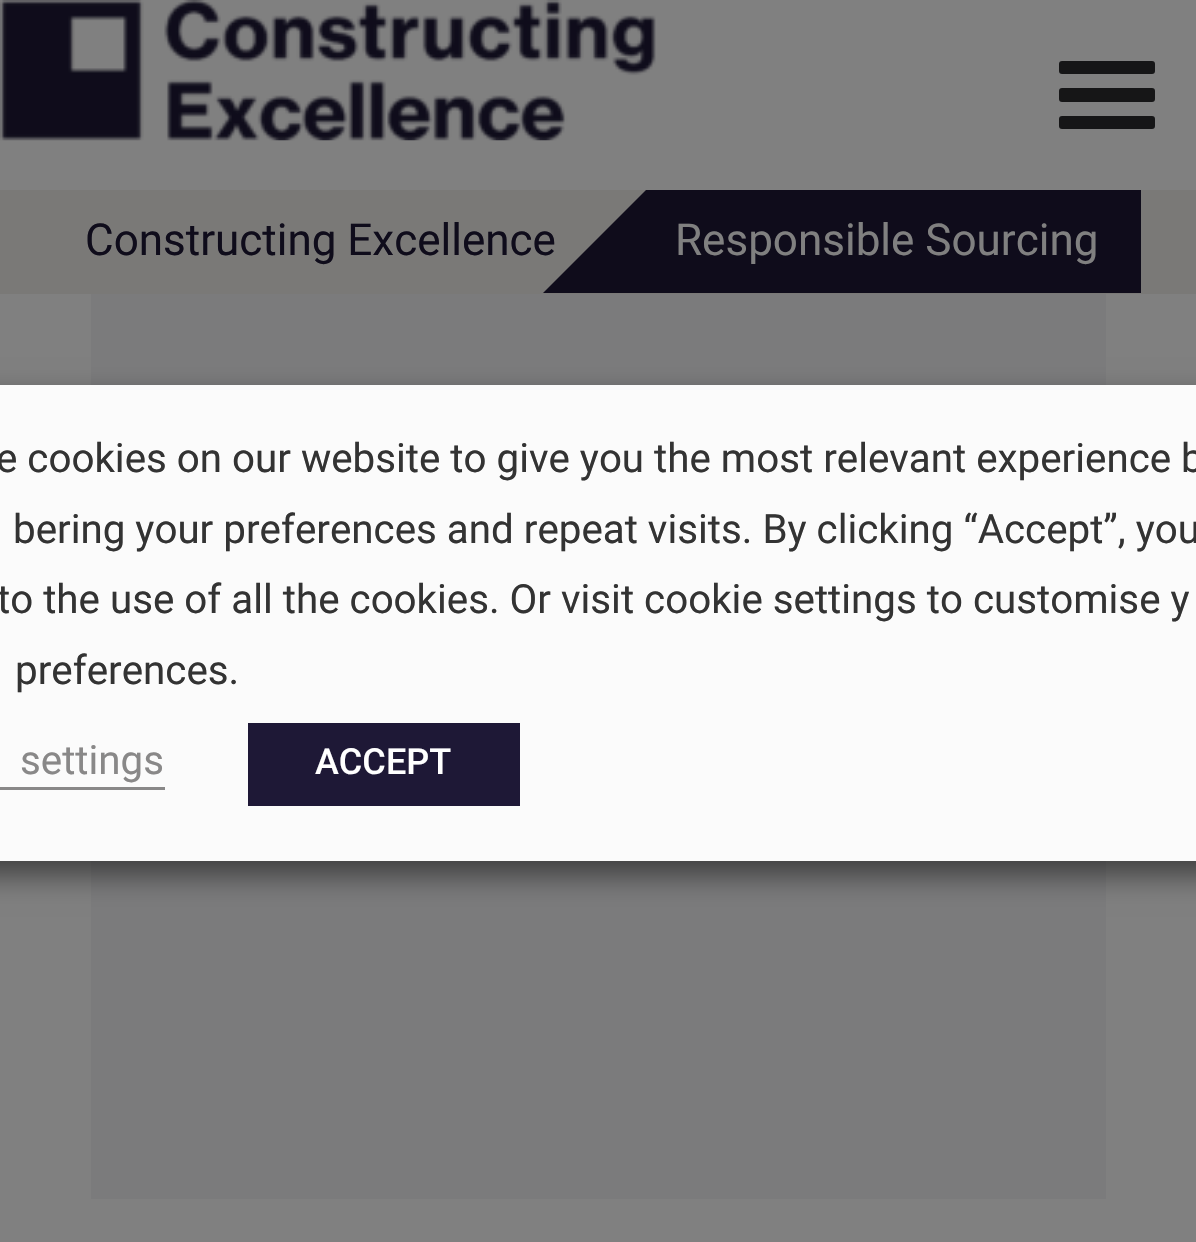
void draw(SkCanvas* canvas) {
    SkPaint paint;
    paint.setAntiAlias(true);
    canvas->clear(0xFF808080);
    canvas->drawImageRect(SkImages::DeferredFromEncodedData(SkData::MakeFromFileName("img1.png")), SkRect::MakeXYWH(0, 0, 656, 141), SkSamplingOptions());
    paint.setColor(0xFF161617);
    canvas->drawRoundRect(SkRect::MakeXYWH(1059, 88, 96, 14), 3, 3, paint);
    canvas->drawRoundRect(SkRect::MakeXYWH(1059, 61, 96, 13), 3, 3, paint);
    canvas->drawRoundRect(SkRect::MakeXYWH(1059, 116, 96, 13), 3, 3, paint);
    paint.setColor(0xFF7A7977);
    canvas->drawRect(SkRect::MakeXYWH(0, 190, 1196, 104), paint);
    canvas->save();
    canvas->clipRect(SkRect::MakeXYWH(542, 190, 599, 104));
    paint.setColor(0xFF0F0C1B);
    canvas->drawPath(SkPathBuilder().moveTo(646, 190).lineTo(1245, 190).lineTo(1142, 293).lineTo(543, 293).close().detach(), paint);
    canvas->restore();
    SkFont font1(fontMgr->matchFamilyStyle("Roboto", SkFontStyle::Normal()), 44);
    font1.setSubpixel(true);
    canvas->drawString("Constructing Excellence", 85, 255, font1, paint);
    paint.setColor(0xFF808080);
    canvas->drawString("Responsible Sourcing", 675, 255, font1, paint);
    paint.setColor(0xFF7B7B7C);
    canvas->drawRect(SkRect::MakeXYWH(91, 294, 1015, 905), paint);
    canvas->save();
    canvas->clipPath(SkPathBuilder(SkPathFillType::kEvenOdd).moveTo(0, 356).lineTo(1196, 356).lineTo(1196, 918).lineTo(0, 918).close().moveTo(-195, 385).lineTo(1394, 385).lineTo(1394, 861).lineTo(-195, 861).close().detach(), true);
    paint.setColor(0x80000000);
    paint.setMaskFilter(SkMaskFilter::MakeBlur(kNormal_SkBlurStyle, 14));
    canvas->drawRect(SkRect::MakeXYWH(-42, 399, 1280, 476), paint);
    paint.setMaskFilter(nullptr);
    canvas->restore();
    paint.setColor(0xF7FFFFFF);
    canvas->drawRect(SkRect::MakeXYWH(0, 385, 1196, 476), paint);
    SkFont font2(fontMgr->matchFamilyStyle("Roboto", SkFontStyle::Normal()), 40.3f);
    font2.setSubpixel(true);
    paint.setColor(0xFF333333);
    canvas->drawString("e cookies on our website to give you the most relevant experience b", -4, 472, font2, paint);
    canvas->drawString("bering your preferences and repeat visits. By clicking “Accept”, you", 13, 543, font2, paint);
    canvas->drawString("to the use of all the cookies. Or visit cookie settings to customise y", -3, 613, font2, paint);
    canvas->drawString("preferences.", 15, 684, font2, paint);
    paint.setColor(0xFF898888);
    canvas->drawString("settings", 20, 774, font2, paint);
    canvas->drawRect(SkRect::MakeXYWH(0, 787, 165, 3), paint);
    paint.setColor(0xFF1E1836);
    canvas->drawRect(SkRect::MakeXYWH(248, 723, 272, 83), paint);
    SkFont font3(fontMgr->matchFamilyStyle("Roboto", SkFontStyle(500, SkFontStyle::kNormal_Width, SkFontStyle::kUpright_Slant)), 36);
    font3.setSubpixel(true);
    paint.setColor(0xFFFFFFFF);
    canvas->drawString("ACCEPT", 315, 774, font3, paint);
}
